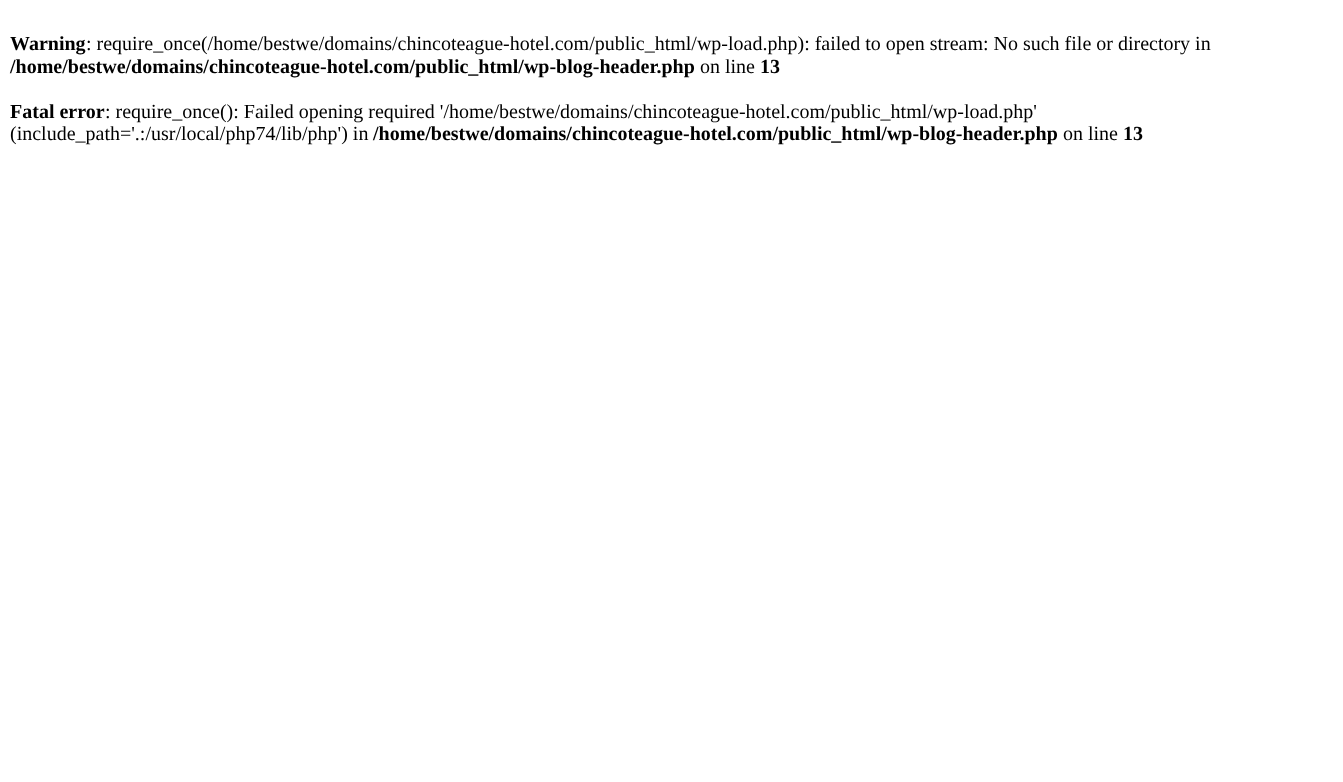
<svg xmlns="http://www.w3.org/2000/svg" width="1343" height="782">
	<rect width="100%" height="100%" fill="#FFFFFF" />
	<text x="10" y="50" font-family="Liberation Serif" font-size="20" font-weight="700" fill="#000000">Warning</text>
	<text x="86" y="50" font-family="Liberation Serif" font-size="20" fill="#000000">: require_once(/home/bestwe/domains/chincoteague-hotel.com/public_html/wp-load.php): failed to open stream: No such file or directory in</text>
	<text x="10" y="73" font-family="Liberation Serif" font-size="20" font-weight="700" fill="#000000">/home/bestwe/domains/chincoteague-hotel.com/public_html/wp-blog-header.php</text>
	<text x="700" y="73" font-family="Liberation Serif" font-size="20" fill="#000000">on line</text>
	<g font-family="Liberation Serif" font-size="20" font-weight="700" fill="#000000">
		<text x="760" y="73">13</text>
		<text x="10" y="118">Fatal error</text>
	</g>
	<g font-family="Liberation Serif" font-size="20" fill="#000000">
		<text x="105" y="118">: require_once(): Failed opening required '/home/bestwe/domains/chincoteague-hotel.com/public_html/wp-load.php'</text>
		<text x="10" y="140">(include_path='.:/usr/local/php74/lib/php') in</text>
	</g>
	<text x="373" y="140" font-family="Liberation Serif" font-size="20" font-weight="700" fill="#000000">/home/bestwe/domains/chincoteague-hotel.com/public_html/wp-blog-header.php</text>
	<text x="1063" y="140" font-family="Liberation Serif" font-size="20" fill="#000000">on line</text>
	<text x="1123" y="140" font-family="Liberation Serif" font-size="20" font-weight="700" fill="#000000">13</text>
</svg>
